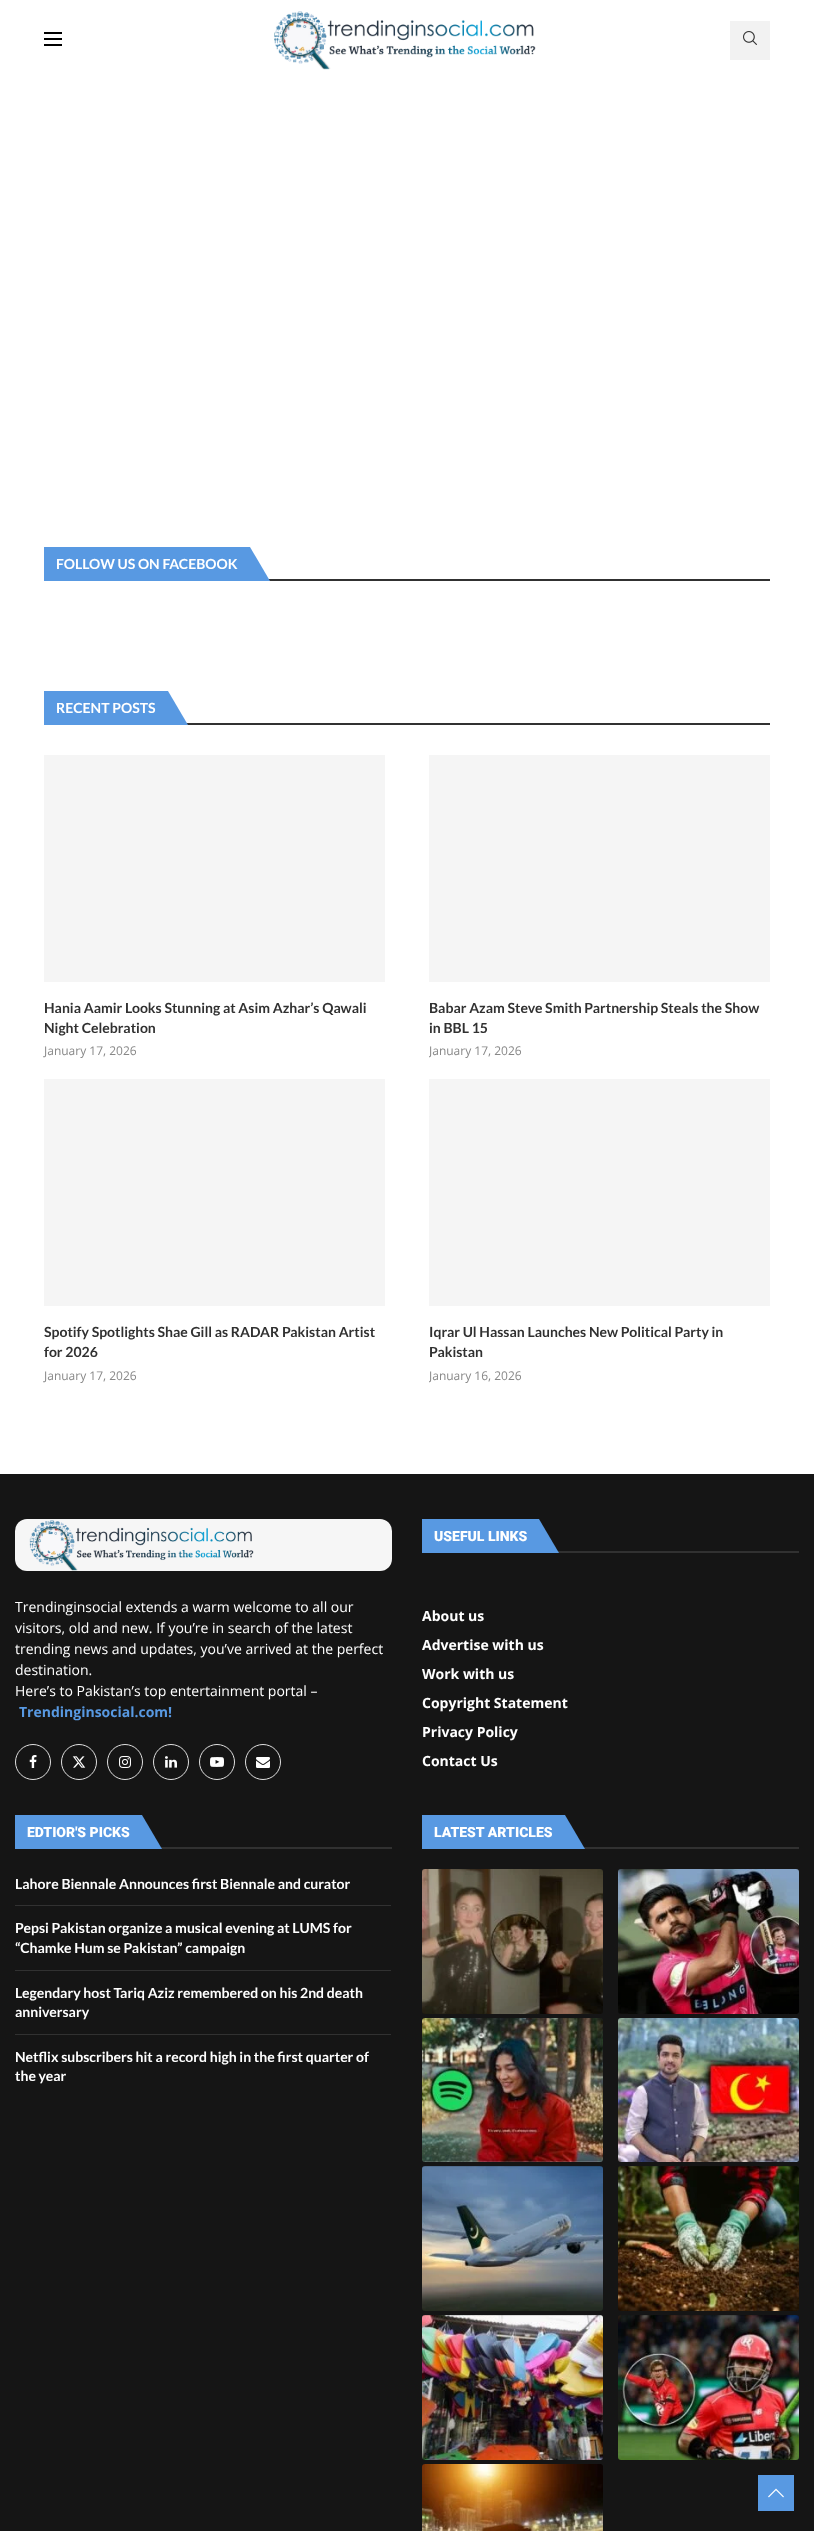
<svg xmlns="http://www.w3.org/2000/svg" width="814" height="2531">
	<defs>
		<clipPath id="clip1"><rect x="429" y="998" width="341" height="61" /></clipPath>
		<clipPath id="clip2"><rect x="429" y="1322" width="341" height="61" /></clipPath>
	</defs>
	<rect width="100%" height="100%" fill="#FFFFFF" />
	<rect x="44" y="32" width="18" height="2" fill="#000000" />
	<rect x="44" y="38" width="18" height="2" fill="#000000" />
	<rect x="44" y="44" width="18" height="2" fill="#000000" />
	<image x="274" y="11" width="262" height="59" href="assets/img1.png" />
	<rect x="730" y="21" width="40" height="39" fill="#F2F2F2" />
	<image x="743" y="31" width="14" height="14" href="assets/img2.png" />
	<rect x="268" y="579" width="502" height="2" fill="#313131" />
	<rect x="44" y="547" width="206" height="34" fill="#5899E2" />
	<text x="56" y="569" font-family="Lato" font-size="14" font-weight="700" fill="#FFFFFF">FOLLOW US ON FACEBOOK</text>
	<path d="M270 581H250V547Z" fill="#5899E2" />
	<rect x="186" y="723" width="584" height="2" fill="#313131" />
	<rect x="44" y="691" width="124" height="34" fill="#5899E2" />
	<text x="56" y="713" font-family="Lato" font-size="14" font-weight="700" fill="#FFFFFF">RECENT POSTS</text>
	<path d="M188 725H168V691Z" fill="#5899E2" />
	<rect x="44" y="755" width="341" height="227" fill="#F5F5F5" />
	<g font-family="Lato" font-size="14" font-weight="700" fill="#313131">
		<text x="44" y="1013">Hania Aamir Looks Stunning at Asim Azhar’s Qawali</text>
		<text x="44" y="1033">Night Celebration</text>
	</g>
	<text x="44" y="1055" font-family="Open Sans" font-size="12" fill="#888888">January 17, 2026</text>
	<rect x="429" y="755" width="341" height="227" fill="#F5F5F5" />
	<g font-family="Lato" font-size="14" font-weight="700" fill="#313131">
		<text x="429" y="1013">Babar Azam Steve Smith Partnership Steals the Show</text>
		<text x="429" y="1033">in BBL 15</text>
	</g>
	<g clip-path="url(#clip1)">
		<text x="429" y="1055" font-family="Open Sans" font-size="12" fill="#888888">January 17, 2026</text>
	</g>
	<rect x="44" y="1079" width="341" height="227" fill="#F5F5F5" />
	<g font-family="Lato" font-size="14" font-weight="700" fill="#313131">
		<text x="44" y="1337">Spotify Spotlights Shae Gill as RADAR Pakistan Artist</text>
		<text x="44" y="1357">for 2026</text>
	</g>
	<text x="44" y="1380" font-family="Open Sans" font-size="12" fill="#888888">January 17, 2026</text>
	<rect x="429" y="1079" width="341" height="227" fill="#F5F5F5" />
	<g font-family="Lato" font-size="14" font-weight="700" fill="#313131">
		<text x="429" y="1337">Iqrar Ul Hassan Launches New Political Party in</text>
		<text x="429" y="1357">Pakistan</text>
	</g>
	<g clip-path="url(#clip2)">
		<text x="429" y="1380" font-family="Open Sans" font-size="12" fill="#888888">January 16, 2026</text>
	</g>
	<rect x="0" y="1474" width="814" height="1057" fill="#151515" />
	<rect x="15" y="1519" width="377" height="52" rx="12" fill="#F6F6F6" />
	<image x="29" y="1520" width="225" height="51" href="assets/img3.png" />
	<g font-family="Open Sans" font-size="14" fill="#FFFFFF">
		<text x="15" y="1612">Trendinginsocial extends a warm welcome to all our</text>
		<text x="15" y="1633">visitors, old and new. If you’re in search of the latest</text>
		<text x="15" y="1654">trending news and updates, you’ve arrived at the perfect</text>
		<text x="15" y="1675">destination.</text>
		<text x="15" y="1696">Here’s to Pakistan’s top entertainment portal –</text>
	</g>
	<text x="19" y="1717" font-family="Open Sans" font-size="14" font-weight="700" fill="#5899E2">Trendinginsocial.com!</text>
	<circle cx="33" cy="1762" r="17.5" fill="none" stroke="#E0E0E0" />
	<image x="29" y="1755" width="8" height="13" href="assets/img4.png" />
	<circle cx="79" cy="1762" r="17.5" fill="none" stroke="#E0E0E0" />
	<image x="72" y="1756" width="14" height="12" href="assets/img5.png" />
	<circle cx="125" cy="1762" r="17.5" fill="none" stroke="#E0E0E0" />
	<image x="119" y="1756" width="12" height="12" href="assets/img6.png" />
	<circle cx="171" cy="1762" r="17.5" fill="none" stroke="#E0E0E0" />
	<image x="165" y="1756" width="12" height="12" href="assets/img7.png" />
	<circle cx="217" cy="1762" r="17.5" fill="none" stroke="#E0E0E0" />
	<image x="210" y="1757" width="14" height="10" href="assets/img8.png" />
	<circle cx="263" cy="1762" r="17.5" fill="none" stroke="#E0E0E0" />
	<image x="256" y="1757" width="14" height="11" href="assets/img9.png" />
	<rect x="557" y="1551" width="242" height="2" fill="#313131" />
	<rect x="422" y="1519" width="117" height="34" fill="#5899E2" />
	<text x="434" y="1541" font-family="Roboto" font-size="14" font-weight="900" fill="#FFFFFF">USEFUL LINKS</text>
	<path d="M559 1553H539V1519Z" fill="#5899E2" />
	<g font-family="Open Sans" font-size="14" font-weight="700" fill="#FFFFFF">
		<text x="422" y="1621">About us</text>
		<text x="422" y="1650">Advertise with us</text>
		<text x="422" y="1679">Work with us</text>
		<text x="422" y="1708">Copyright Statement</text>
		<text x="422" y="1737">Privacy Policy</text>
		<text x="422" y="1766">Contact Us</text>
	</g>
	<rect x="160" y="1847" width="232" height="2" fill="#313131" />
	<rect x="15" y="1815" width="127" height="34" fill="#5899E2" />
	<text x="27" y="1837" font-family="Roboto" font-size="14" font-weight="900" fill="#FFFFFF">EDTIOR'S PICKS</text>
	<path d="M162 1849H142V1815Z" fill="#5899E2" />
	<rect x="15" y="1905" width="376" height="1" fill="#313131" />
	<text x="15" y="1889" font-family="Lato" font-size="14" font-weight="700" fill="#FFFFFF">Lahore Biennale Announces first Biennale and curator</text>
	<rect x="15" y="1970" width="376" height="1" fill="#313131" />
	<g font-family="Lato" font-size="14" font-weight="700" fill="#FFFFFF">
		<text x="15" y="1933">Pepsi Pakistan organize a musical evening at LUMS for</text>
		<text x="15" y="1953">“Chamke Hum se Pakistan” campaign</text>
	</g>
	<rect x="15" y="2034" width="376" height="1" fill="#313131" />
	<g font-family="Lato" font-size="14" font-weight="700" fill="#FFFFFF">
		<text x="15" y="1998">Legendary host Tariq Aziz remembered on his 2nd death</text>
		<text x="15" y="2017">anniversary</text>
		<text x="15" y="2062">Netflix subscribers hit a record high in the first quarter of</text>
		<text x="15" y="2081">the year</text>
	</g>
	<rect x="583" y="1847" width="216" height="2" fill="#313131" />
	<rect x="422" y="1815" width="143" height="34" fill="#5899E2" />
	<text x="434" y="1837" font-family="Roboto" font-size="14" font-weight="900" fill="#FFFFFF">LATEST ARTICLES</text>
	<path d="M585 1849H565V1815Z" fill="#5899E2" />
	<image x="422" y="1869" width="181" height="145" href="assets/img10.png" />
	<image x="618" y="1869" width="181" height="145" href="assets/img11.png" />
	<image x="422" y="2018" width="181" height="144" href="assets/img12.png" />
	<image x="618" y="2018" width="181" height="144" href="assets/img13.png" />
	<image x="422" y="2166" width="181" height="145" href="assets/img14.png" />
	<image x="618" y="2166" width="181" height="145" href="assets/img15.png" />
	<image x="422" y="2315" width="181" height="145" href="assets/img16.png" />
	<image x="618" y="2315" width="181" height="145" href="assets/img17.png" />
	<image x="422" y="2464" width="181" height="67" href="assets/img18.png" />
	<rect x="758" y="2475" width="36" height="36" fill="#5899E2" />
	<image x="768" y="2488" width="16" height="10" href="assets/img19.png" />
</svg>
